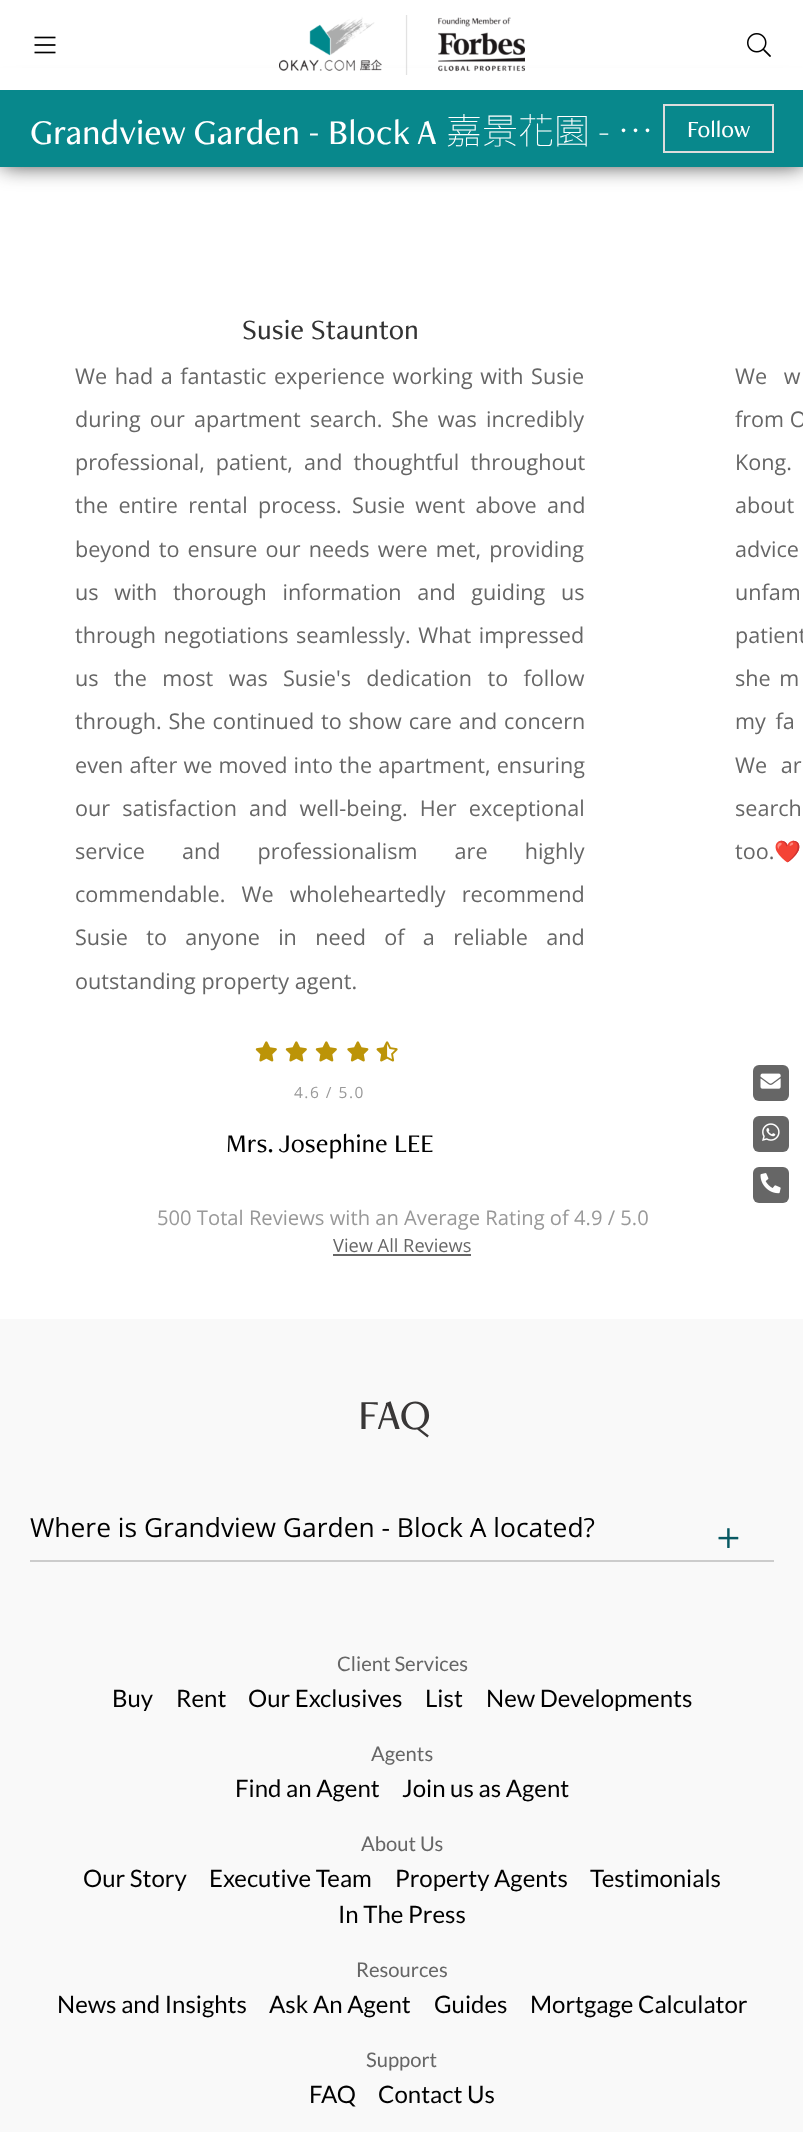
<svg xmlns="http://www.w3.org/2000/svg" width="803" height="2132">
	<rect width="100%" height="100%" fill="#FFFFFF" />
	<rect x="2" y="92" width="801" height="73" fill="#333333" filter="blur(11px)" />
	<rect x="0" y="68" width="803" height="22" fill="#FFFFFF" />
	<image x="34" y="36" width="22" height="18" href="assets/img1.png" />
	<image x="279" y="15" width="246" height="60" href="assets/img2.png" />
	<image x="747" y="33" width="24" height="24" href="assets/img3.png" />
	<rect x="0" y="90" width="803" height="77" fill="#08888C" />
	<text x="30" y="144" word-spacing="-0.5" font-family="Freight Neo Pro" font-size="36" font-weight="500" fill="#FFFFFF">Grandview Garden - Block A</text>
	<text x="446" y="144" font-family="Noto Sans TC" font-size="36" font-weight="100" fill="#FFFFFF">嘉景花園 - …</text>
	<rect x="664" y="105" width="109" height="47" fill="none" stroke="#DDDDDD" stroke-width="2" />
	<text x="687" y="137" font-family="Freight Neo Pro" font-size="24" font-weight="500" fill="#FFFFFF">Follow</text>
	<text x="242" y="339" font-family="Freight Neo Pro" font-size="28.75" font-weight="500" fill="#333333">Susie Staunton</text>
	<g font-family="Open Sans" font-size="21.6" fill="#666666">
		<text x="75" y="384" word-spacing="2">We had a fantastic experience working with Susie</text>
		<text x="75" y="427" word-spacing="3.5">during our apartment search. She was incredibly</text>
		<text x="75" y="470" word-spacing="5.5">professional, patient, and thoughtful throughout</text>
		<text x="75" y="513" word-spacing="4.75">the entire rental process. Susie went above and</text>
		<text x="75" y="557" word-spacing="2.5">beyond to ensure our needs were met, providing</text>
		<text x="75" y="600" word-spacing="10">us with thorough information and guiding us</text>
		<text x="75" y="643" word-spacing="2">through negotiations seamlessly. What impressed</text>
		<text x="75" y="686" word-spacing="9.75">us the most was Susie's dedication to follow</text>
		<text x="75" y="729" word-spacing="1.25">through. She continued to show care and concern</text>
		<text x="75" y="773" word-spacing="0.5">even after we moved into the apartment, ensuring</text>
		<text x="75" y="816" word-spacing="6.5">our satisfaction and well-being. Her exceptional</text>
		<text x="75" y="859" word-spacing="31.5">service and professionalism are highly</text>
		<text x="75" y="902" word-spacing="10.5">commendable. We wholeheartedly recommend</text>
		<text x="75" y="945" word-spacing="12.75">Susie to anyone in need of a reliable and</text>
		<text x="75" y="989">outstanding property agent.</text>
	</g>
	<image x="255" y="1041" width="22" height="21" href="assets/img4.png" />
	<image x="285" y="1041" width="22" height="21" href="assets/img4.png" />
	<image x="315" y="1041" width="22" height="21" href="assets/img4.png" />
	<image x="347" y="1041" width="22" height="21" href="assets/img5.png" />
	<image x="376" y="1041" width="22" height="21" href="assets/img6.png" />
	<text x="294" y="1098" font-family="Open Sans" font-size="15.5" letter-spacing="1.5" fill="#999999">4.6 / 5.0</text>
	<text x="226" y="1152" font-family="Freight Neo Pro" font-size="26.4" font-weight="500" fill="#000000">Mrs. Josephine LEE</text>
	<g font-family="Open Sans" font-size="21.6" fill="#666666">
		<text x="735" y="384" word-spacing="11">We w</text>
		<text x="735" y="427">from O</text>
		<text x="735" y="470" word-spacing="10.5">Kong.</text>
		<text x="735" y="513" word-spacing="10">about</text>
		<text x="735" y="557" word-spacing="1">advice</text>
		<text x="735" y="600" word-spacing="5">unfam</text>
		<text x="735" y="643" word-spacing="3">patient</text>
		<text x="735" y="686" word-spacing="3">she m</text>
		<text x="735" y="729" word-spacing="4">my fa</text>
		<text x="735" y="773" word-spacing="8">We ar</text>
		<text x="735" y="816" word-spacing="6">search</text>
		<text x="735" y="859">too.</text>
	</g>
	<text x="774" y="859" font-family="Noto Color Emoji" font-size="21.6" fill="#666666">❤️</text>
	<text x="157" y="1225" font-family="Open Sans" font-size="20.2" fill="#999999">500 Total Reviews with an Average Rating of 4.9 / 5.0</text>
	<text x="333" y="1252" font-family="Open Sans" font-size="18.25" fill="#666666">View All Reviews</text>
	<rect x="333" y="1254" width="138" height="2" fill="#666666" />
	<rect x="0" y="1319" width="803" height="813" fill="#F9F9F9" />
	<text x="358" y="1429" font-family="Freight Neo Pro" font-size="43" font-weight="500" fill="#393737">FAQ</text>
	<rect x="30" y="1560" width="744" height="2" fill="#CCCCCC" />
	<text x="30" y="1537" font-family="Open Sans" font-size="26.4" fill="#000000">Where is Grandview Garden - Block A located?</text>
	<image x="718" y="1528" width="21" height="20" href="assets/img7.png" />
	<rect x="753" y="1065" width="36" height="36" rx="6" fill="#666666" />
	<image x="760" y="1073" width="21" height="16" href="assets/img8.png" />
	<rect x="753" y="1116" width="36" height="36" rx="6" fill="#666666" />
	<image x="762" y="1123" width="18" height="18" href="assets/img9.png" />
	<rect x="753" y="1167" width="36" height="36" rx="6" fill="#666666" />
	<image x="760" y="1173" width="21" height="21" href="assets/img10.png" />
	<text x="337" y="1671" font-family="Lato" font-size="20.2" fill="#666666">Client Services</text>
	<g font-family="Lato" font-size="24" fill="#000000">
		<text x="112" y="1707">Buy</text>
		<text x="176" y="1707">Rent</text>
		<text x="248" y="1707">Our Exclusives</text>
		<text x="425" y="1707">List</text>
		<text x="486" y="1707">New Developments</text>
	</g>
	<text x="371" y="1761" font-family="Lato" font-size="20.2" fill="#666666">Agents</text>
	<g font-family="Lato" font-size="24" fill="#000000">
		<text x="235" y="1797">Find an Agent</text>
		<text x="402" y="1797">Join us as Agent</text>
	</g>
	<text x="361" y="1851" font-family="Lato" font-size="20.2" fill="#666666">About Us</text>
	<g font-family="Lato" font-size="24" fill="#000000">
		<text x="83" y="1887">Our Story</text>
		<text x="209" y="1887">Executive Team</text>
		<text x="395" y="1887">Property Agents</text>
		<text x="590" y="1887">Testimonials</text>
		<text x="338" y="1923">In The Press</text>
	</g>
	<text x="356" y="1977" font-family="Lato" font-size="20.2" fill="#666666">Resources</text>
	<g font-family="Lato" font-size="24" fill="#000000">
		<text x="57" y="2013">News and Insights</text>
		<text x="269" y="2013">Ask An Agent</text>
		<text x="434" y="2013">Guides</text>
		<text x="530" y="2013">Mortgage Calculator</text>
	</g>
	<text x="366" y="2067" font-family="Lato" font-size="20.2" fill="#666666">Support</text>
	<g font-family="Lato" font-size="24" fill="#000000">
		<text x="309" y="2103">FAQ</text>
		<text x="378" y="2103">Contact Us</text>
	</g>
</svg>
